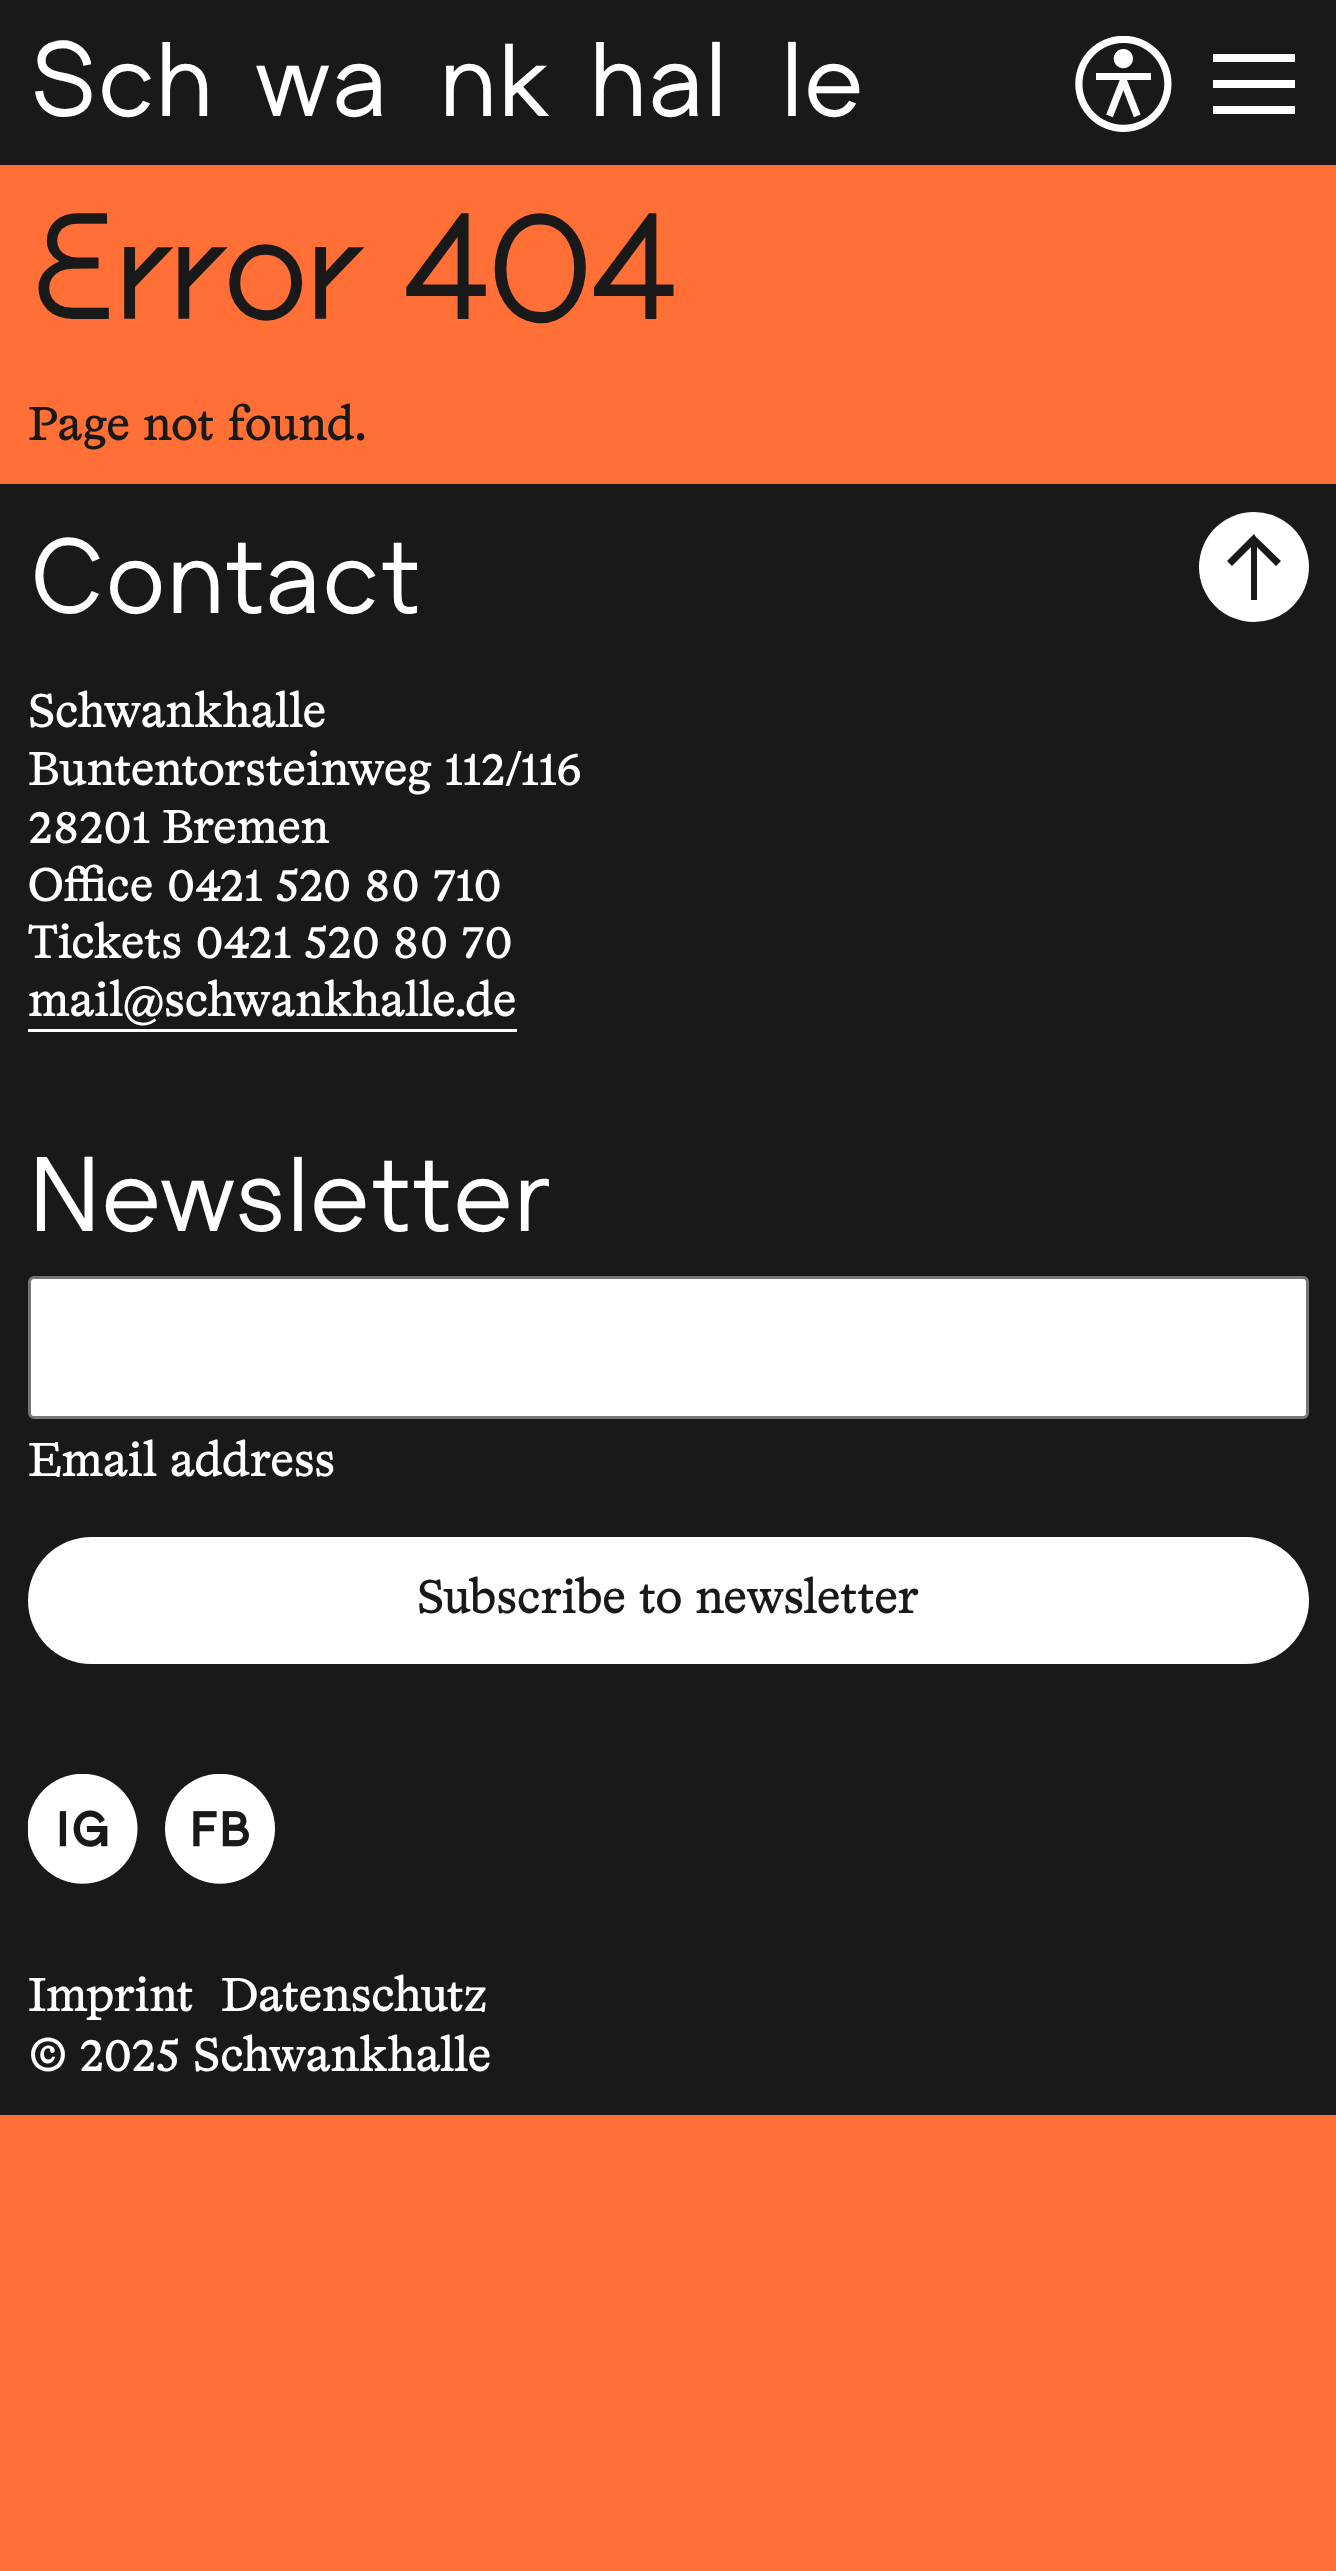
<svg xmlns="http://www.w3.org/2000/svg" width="1336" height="2571">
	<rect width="100%" height="100%" fill="#FF6F36" />
	<rect x="0" y="0" width="1336" height="165" fill="#191919" />
	<g font-family="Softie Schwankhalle" font-size="96.25" letter-spacing="-1.4" fill="#FFFFFF">
		<text x="28" y="116">Sch</text>
		<text x="253" y="116">wa</text>
		<text x="438" y="116">nk</text>
		<text x="588" y="116">hal</text>
		<text x="780" y="116">le</text>
	</g>
	<image x="1075" y="36" width="97" height="96" href="assets/img1.png" />
	<rect x="1213" y="54" width="82" height="8" fill="#FFFFFF" />
	<rect x="1213" y="80" width="82" height="8" fill="#FFFFFF" />
	<rect x="1213" y="106" width="82" height="8" fill="#FFFFFF" />
	<text x="28" y="319" font-family="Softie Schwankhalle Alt" font-size="137.5" letter-spacing="-6.9" fill="#191919">Error 404</text>
	<text x="28" y="440" font-family="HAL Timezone" font-size="48.1" fill="#191919">Page not found.</text>
	<rect x="0" y="484" width="1336" height="1631" fill="#191919" />
	<text x="28" y="613" font-family="Softie Schwankhalle" font-size="96.25" letter-spacing="-1.4" fill="#FFFFFF">Contact</text>
	<g font-family="HAL Timezone" font-size="48.1" fill="#FFFFFF">
		<text x="28" y="727">Schwankhalle</text>
		<text x="28" y="785">Buntentorsteinweg 112/116</text>
		<text x="28" y="843">28201 Bremen</text>
		<text x="28" y="901">Office 0421 520 80 710</text>
		<text x="28" y="958">Tickets 0421 520 80 70</text>
		<text x="28" y="1016">mail@schwankhalle.de</text>
	</g>
	<rect x="28" y="1029" width="489" height="3" fill="#FFFFFF" />
	<circle cx="1254" cy="567" r="55" fill="#FFFFFF" />
	<path d="M1256 537L1254 534L1227 561L1232 566L1251 547V600H1257V547L1276 566L1281 561Z" fill="#191919" fill-rule="evenodd" />
	<text x="28" y="1231" font-family="Softie Schwankhalle" font-size="96.25" letter-spacing="-1.4" fill="#FFFFFF">Newsletter</text>
	<rect x="29.5" y="1277.5" width="1278" height="140" rx="4.5" fill="#FFFFFF" stroke="#767676" stroke-width="3" />
	<text x="28" y="1476" font-family="HAL Timezone" font-size="48.1" fill="#FFFFFF">Email address</text>
	<rect x="28" y="1537" width="1281" height="127" rx="63.5" fill="#FFFFFF" />
	<text x="417" y="1613" font-family="HAL Timezone" font-size="48.1" fill="#191919">Subscribe to newsletter</text>
	<image x="28" y="1774" width="110" height="110" href="assets/img2.png" />
	<image x="165" y="1774" width="110" height="110" href="assets/img3.png" />
	<g font-family="HAL Timezone" font-size="48.1" fill="#FFFFFF">
		<text x="28" y="2011">Imprint</text>
		<text x="221" y="2011">Datenschutz</text>
		<text x="28" y="2071">© 2025 Schwankhalle</text>
	</g>
</svg>
